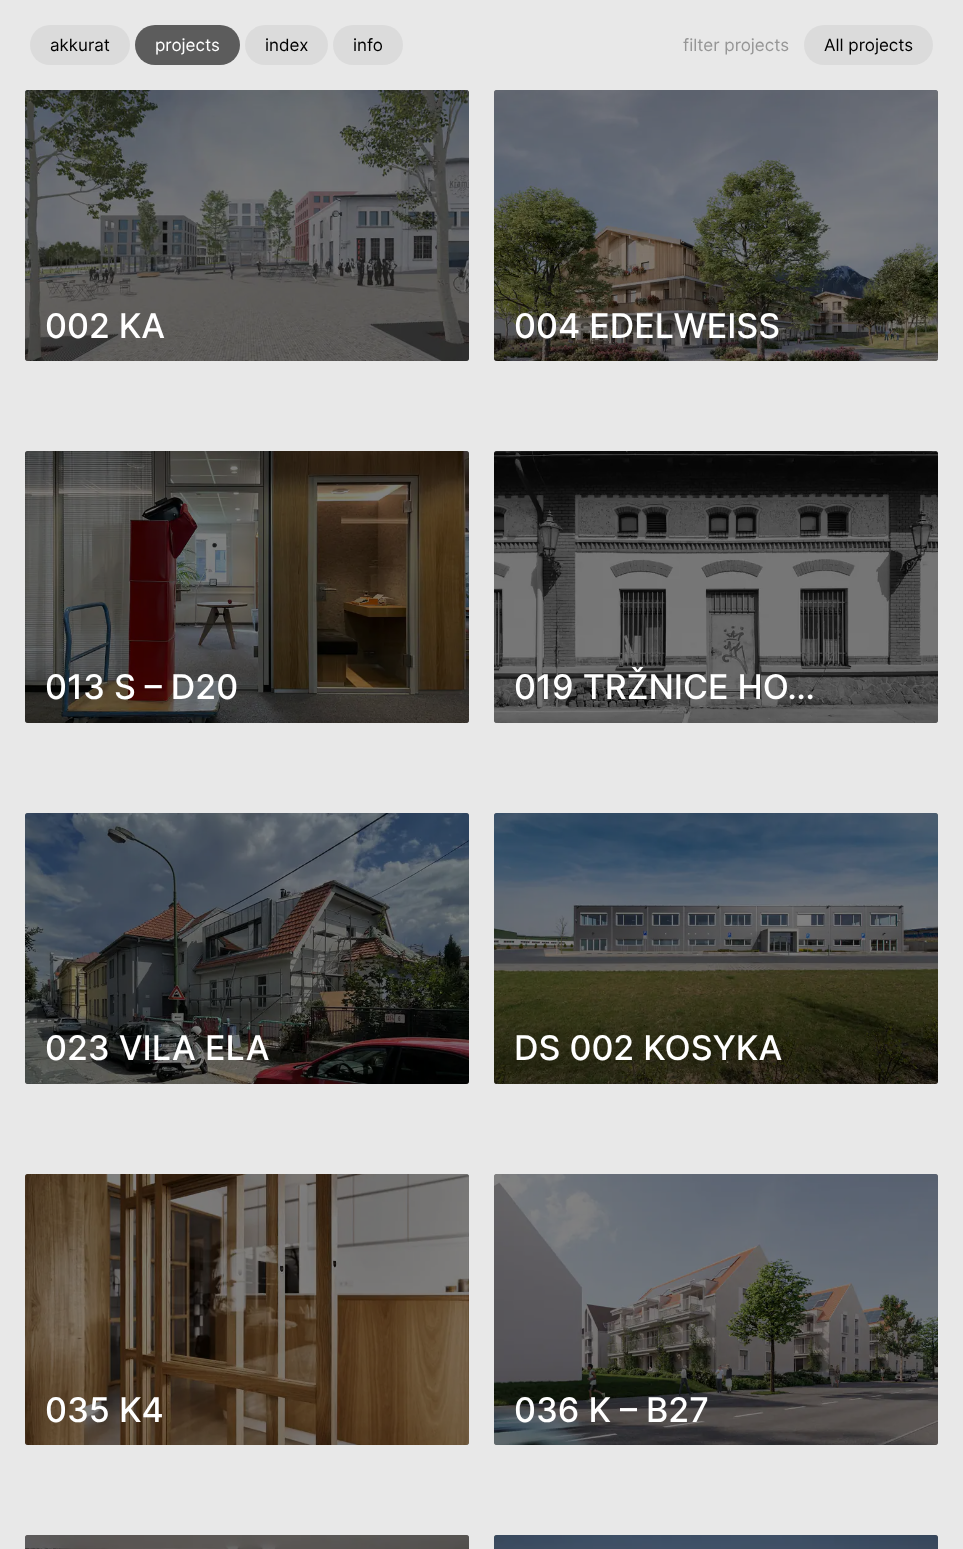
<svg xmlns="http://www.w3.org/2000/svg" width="963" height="1549">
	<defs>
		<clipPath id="clip1"><rect x="514" y="667" width="404" height="41" /></clipPath>
	</defs>
	<rect width="100%" height="100%" fill="#E8E8E8" />
	<rect x="30" y="25" width="100" height="40" rx="20" fill="#DBDBDB" />
	<text x="50" y="51" font-family="Inter" font-size="17" fill="#000000">akkurat</text>
	<rect x="135" y="25" width="105" height="40" rx="20" fill="#5C5C5C" />
	<text x="155" y="51" font-family="Inter" font-size="17" fill="#FFFFFF">projects</text>
	<rect x="245" y="25" width="83" height="40" rx="20" fill="#DBDBDB" />
	<text x="265" y="51" font-family="Inter" font-size="17" fill="#000000">index</text>
	<rect x="333" y="25" width="70" height="40" rx="20" fill="#DBDBDB" />
	<text x="353" y="51" font-family="Inter" font-size="17" fill="#000000">info</text>
	<text x="683" y="51" font-family="Inter" font-size="17" fill="#969696">filter projects</text>
	<rect x="804" y="25" width="129" height="40" rx="20" fill="#DBDBDB" />
	<text x="824" y="51" font-family="Inter" font-size="17" fill="#000000">All projects</text>
	<rect x="25" y="90" width="444" height="271" rx="3" fill="#000000" />
	<image x="25" y="90" width="444" height="271" href="assets/img1.png" />
	<text x="45" y="338" font-family="Inter" font-size="34" font-weight="500" fill="#FFFFFF">002 KA</text>
	<rect x="494" y="90" width="444" height="271" rx="3" fill="#000000" />
	<image x="494" y="90" width="444" height="271" href="assets/img2.png" />
	<text x="514" y="338" font-family="Inter" font-size="34" font-weight="500" fill="#FFFFFF">004 EDELWEISS</text>
	<rect x="25" y="451" width="444" height="272" rx="3" fill="#000000" />
	<image x="25" y="451" width="444" height="272" href="assets/img3.png" />
	<text x="45" y="699" font-family="Inter" font-size="34" font-weight="500" fill="#FFFFFF">013 S – D20</text>
	<rect x="494" y="451" width="444" height="272" rx="3" fill="#000000" />
	<image x="494" y="451" width="444" height="272" href="assets/img4.png" />
	<g clip-path="url(#clip1)">
		<text x="514" y="699" font-family="Inter" font-size="34" font-weight="500" fill="#FFFFFF">019 TRŽNICE HO…</text>
	</g>
	<rect x="25" y="813" width="444" height="271" rx="3" fill="#000000" />
	<image x="25" y="813" width="444" height="271" href="assets/img5.png" />
	<text x="45" y="1060" font-family="Inter" font-size="34" font-weight="500" fill="#FFFFFF">023 VILA ELA</text>
	<rect x="494" y="813" width="444" height="271" rx="3" fill="#000000" />
	<image x="494" y="813" width="444" height="271" href="assets/img6.png" />
	<text x="514" y="1060" font-family="Inter" font-size="34" font-weight="500" fill="#FFFFFF">DS 002 KOSYKA</text>
	<rect x="25" y="1174" width="444" height="271" rx="3" fill="#000000" />
	<image x="25" y="1174" width="444" height="271" href="assets/img7.png" />
	<text x="45" y="1422" font-family="Inter" font-size="34" font-weight="500" fill="#FFFFFF">035 K4</text>
	<rect x="494" y="1174" width="444" height="271" rx="3" fill="#000000" />
	<image x="494" y="1174" width="444" height="271" href="assets/img8.png" />
	<text x="514" y="1422" font-family="Inter" font-size="34" font-weight="500" fill="#FFFFFF">036 K – B27</text>
	<rect x="25" y="1535" width="444" height="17" rx="3" fill="#000000" />
	<image x="25" y="1535" width="444" height="14" href="assets/img9.png" />
	<rect x="494" y="1535" width="444" height="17" rx="3" fill="#000000" />
	<image x="494" y="1535" width="444" height="14" href="assets/img10.png" />
</svg>
